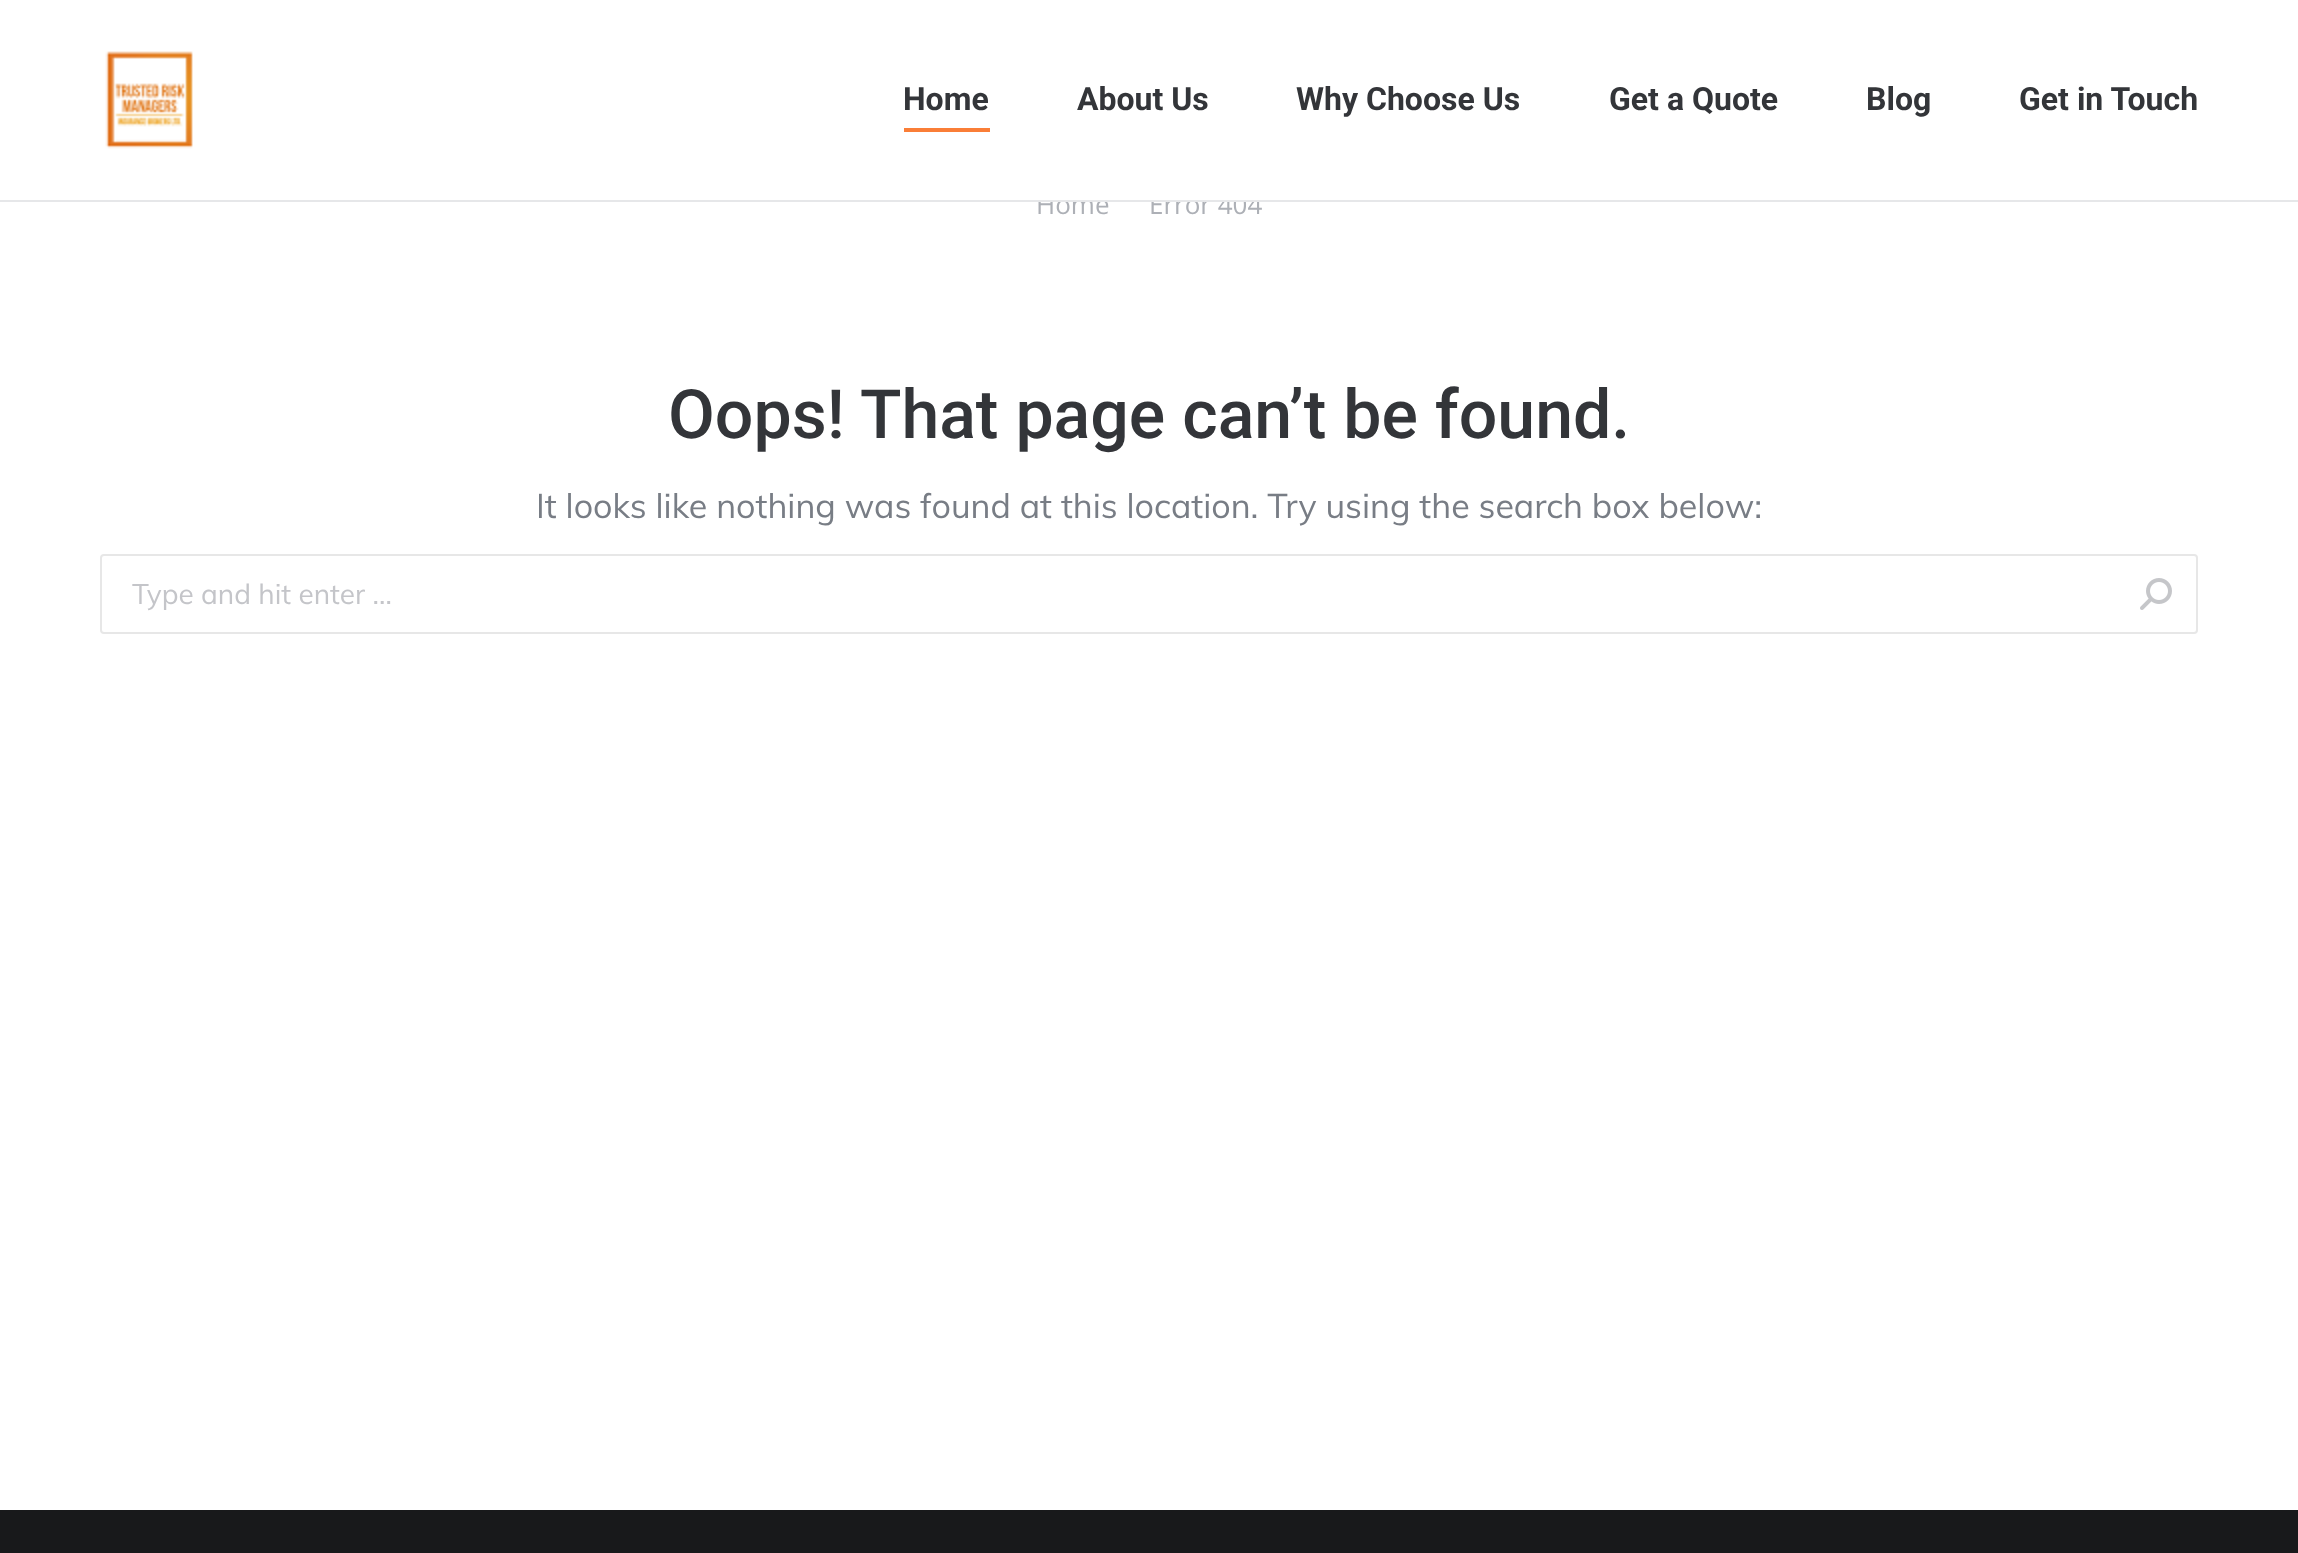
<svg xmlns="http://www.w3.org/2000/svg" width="2298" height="1553">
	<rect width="100%" height="100%" fill="#FFFFFF" />
	<g font-family="Open Sans" font-size="26" fill="#ADB0B6">
		<text x="1036" y="214">Home</text>
		<text x="1149" y="214">Error 404</text>
	</g>
	<rect x="1038" y="195" width="222" height="5" fill="#FFFFFF" />
	<rect x="0" y="200" width="2298" height="2" fill="#E6E7E9" />
	<image x="105" y="51" width="88" height="98" href="assets/img1.png" />
	<text x="903" y="110" font-family="Roboto" font-size="32" font-weight="700" fill="#333539">Home</text>
	<rect x="904" y="128" width="86" height="4" fill="#FA7E37" />
	<g font-family="Roboto" font-size="32" font-weight="700" fill="#333539">
		<text x="1077" y="110">About Us</text>
		<text x="1296" y="110">Why Choose Us</text>
		<text x="1609" y="110">Get a Quote</text>
		<text x="1866" y="110">Blog</text>
		<text x="2019" y="110">Get in Touch</text>
	</g>
	<text x="668" y="438" font-family="Roboto" font-size="68" font-weight="500" fill="#333539">Oops! That page can’t be found.</text>
	<text x="536" y="518" font-family="Muli" font-size="34" fill="#787D85">It looks like nothing was found at this location. Try using the search box below:</text>
	<rect x="101" y="555" width="2096" height="78" rx="3" fill="none" stroke="#E7E7E7" stroke-width="2" />
	<text x="132" y="604" font-family="Muli" font-size="28" fill="#C4C5C9">Type and hit enter …</text>
	<image x="2140" y="578" width="32" height="32" href="assets/img2.png" />
	<rect x="0" y="1510" width="2298" height="43" fill="#18191B" />
</svg>
